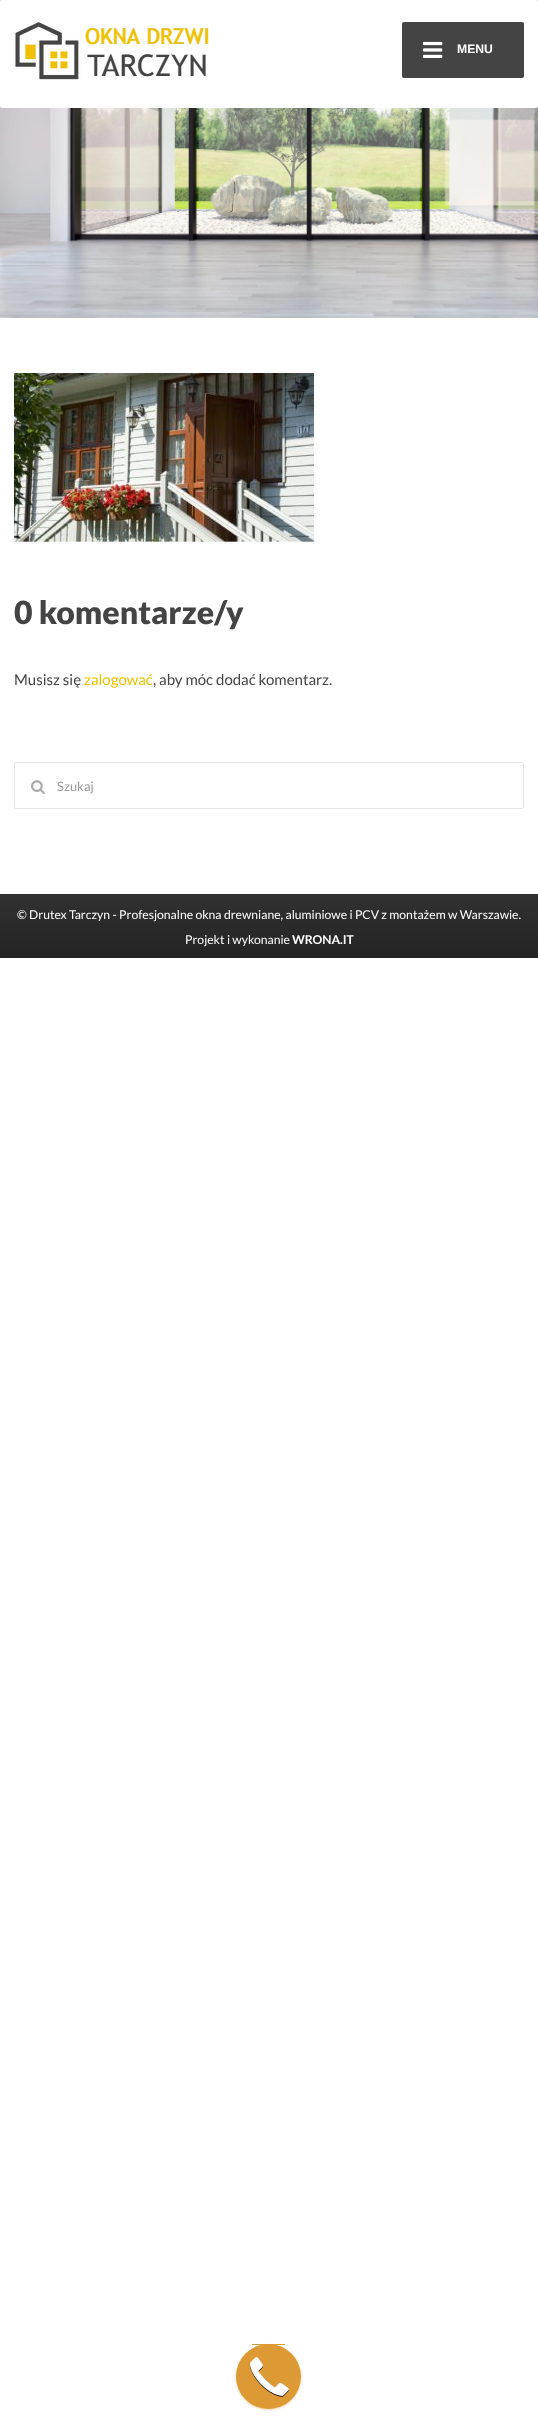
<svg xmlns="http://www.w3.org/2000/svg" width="538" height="2424">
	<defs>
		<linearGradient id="g1" gradientUnits="userSpaceOnUse" x1="269" y1="894" x2="269" y2="958"><stop offset="0" stop-color="#313131" /><stop offset="1" stop-color="#242424" /></linearGradient>
	</defs>
	<rect width="100%" height="100%" fill="#FFFFFF" />
	<image x="0" y="0" width="538" height="318" href="assets/img1.png" />
	<rect x="0" y="0" width="538" height="108" rx="2" fill="#FFFFFF" />
	<image x="15" y="22" width="194" height="58" href="assets/img2.png" />
	<rect x="402" y="22" width="122" height="56" rx="2" fill="#444444" />
	<image x="423" y="41" width="20" height="17" href="assets/img3.png" />
	<text x="457" y="53" font-family="Liberation Sans" font-size="12.2" font-weight="700" fill="#FFFFFF">MENU</text>
	<image x="14" y="373" width="300" height="169" href="assets/img4.png" />
	<text x="14" y="624" font-family="Lato" font-size="32" font-weight="900" fill="#444444">0 komentarze/y</text>
	<text x="14" y="685" font-family="Lato" font-size="15" fill="#444444">Musisz się</text>
	<text x="84" y="685" font-family="Lato" font-size="15" fill="#F0C000">zalogować</text>
	<text x="153" y="685" font-family="Lato" font-size="15" fill="#444444">, aby móc dodać komentarz.</text>
	<rect x="14.5" y="762.5" width="509" height="46" rx="1.5" fill="none" stroke="#E6E6E6" />
	<image x="31" y="780" width="14" height="15" href="assets/img5.png" />
	<text x="57" y="791" font-family="Lato" font-size="13" fill="#999999">Szukaj</text>
	<rect x="0" y="894" width="538" height="64" fill="url(#g1)" />
	<g font-family="Lato" font-size="12.2" fill="#FFFFFF">
		<text x="17" y="919">© Drutex Tarczyn - Profesjonalne okna drewniane, aluminiowe i PCV z montażem w Warszawie.</text>
		<text x="185" y="944">Projekt i wykonanie</text>
	</g>
	<text x="292" y="944" font-family="Lato" font-size="12.2" font-weight="700" fill="#FFFFFF">WRONA.IT</text>
	<rect x="236" y="2345" width="65" height="65" rx="32.5" fill="#DD9933" fill-opacity="0.4" filter="blur(1px)" />
	<circle cx="268.5" cy="2376.5" r="32.5" fill="#DD9933" />
	<image x="249" y="2357" width="40" height="40" href="assets/img6.png" />
	<rect x="252" y="2344" width="33" height="1" fill="#DD9933" />
</svg>
